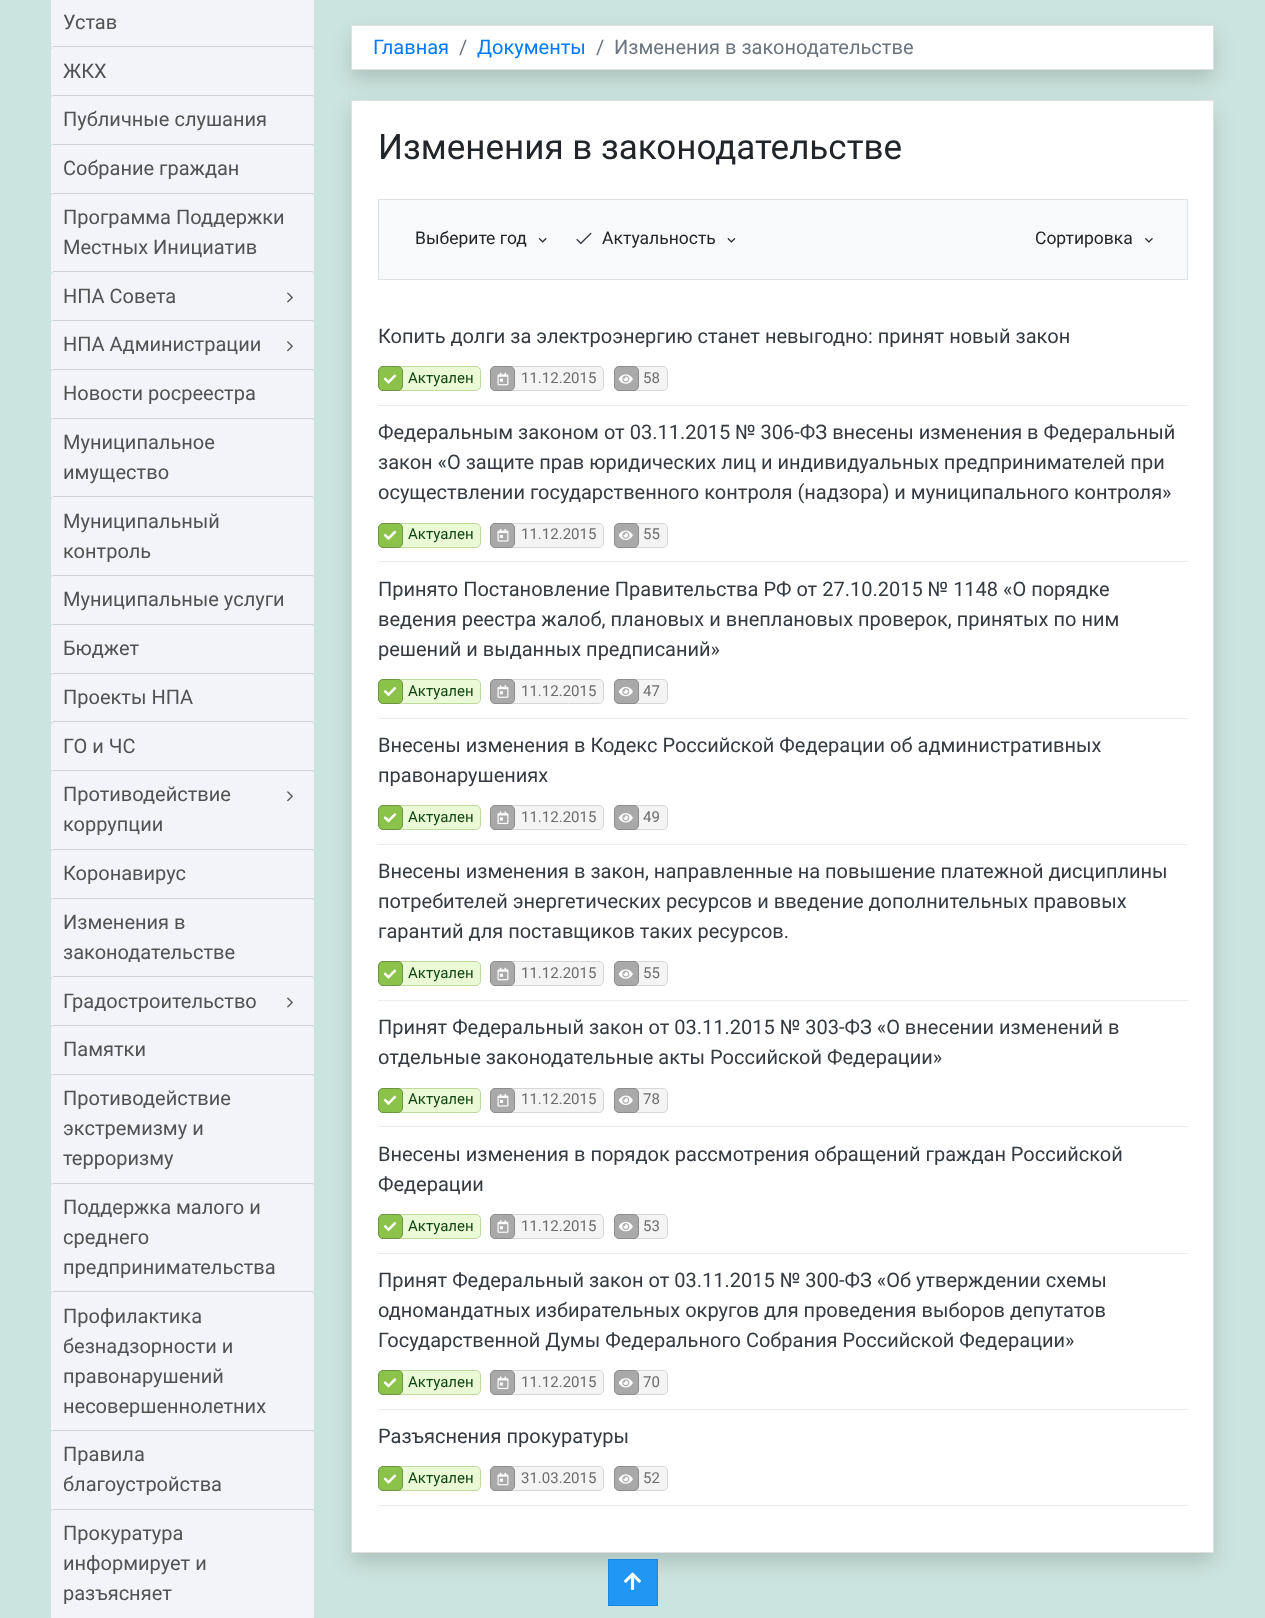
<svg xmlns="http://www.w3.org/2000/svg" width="1265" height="1618">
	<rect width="100%" height="100%" fill="#CCE4DF" />
	<rect x="51" y="-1" width="263" height="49" rx="2.5" fill="#F2F4F9" />
	<rect x="53" y="46" width="260" height="1" fill="#CFD1D7" />
	<text x="63" y="29" font-family="Roboto" font-size="20" fill="#525252">Устав</text>
	<rect x="51" y="48" width="263" height="48" rx="2.5" fill="#F2F4F9" />
	<rect x="53" y="95" width="260" height="1" fill="#CFD1D7" />
	<text x="63" y="78" font-family="Roboto" font-size="20" fill="#525252">ЖКХ</text>
	<rect x="51" y="96" width="263" height="49" rx="2.5" fill="#F2F4F9" />
	<rect x="53" y="144" width="260" height="1" fill="#CFD1D7" />
	<text x="63" y="126" font-family="Roboto" font-size="20" fill="#525252">Публичные слушания</text>
	<rect x="51" y="145" width="263" height="49" rx="2.5" fill="#F2F4F9" />
	<rect x="53" y="193" width="260" height="1" fill="#CFD1D7" />
	<text x="63" y="175" font-family="Roboto" font-size="20" fill="#525252">Собрание граждан</text>
	<rect x="51" y="194" width="263" height="79" rx="2.5" fill="#F2F4F9" />
	<rect x="53" y="271" width="260" height="1" fill="#CFD1D7" />
	<g font-family="Roboto" font-size="20" fill="#525252">
		<text x="63" y="224">Программа Поддержки</text>
		<text x="63" y="254">Местных Инициатив</text>
	</g>
	<rect x="51" y="273" width="263" height="48" rx="2.5" fill="#F2F4F9" />
	<rect x="53" y="320" width="260" height="1" fill="#CFD1D7" />
	<text x="63" y="303" font-family="Roboto" font-size="20" fill="#525252">НПА Совета</text>
	<image x="287" y="292" width="6" height="11" href="assets/img1.png" />
	<rect x="51" y="321" width="263" height="49" rx="2.5" fill="#F2F4F9" />
	<rect x="53" y="369" width="260" height="1" fill="#CFD1D7" />
	<text x="63" y="351" font-family="Roboto" font-size="20" fill="#525252">НПА Администрации</text>
	<image x="287" y="341" width="6" height="11" href="assets/img2.png" />
	<rect x="51" y="370" width="263" height="49" rx="2.5" fill="#F2F4F9" />
	<rect x="53" y="418" width="260" height="1" fill="#CFD1D7" />
	<text x="63" y="400" font-family="Roboto" font-size="20" fill="#525252">Новости росреестра</text>
	<rect x="51" y="419" width="263" height="79" rx="2.5" fill="#F2F4F9" />
	<rect x="53" y="496" width="260" height="1" fill="#CFD1D7" />
	<g font-family="Roboto" font-size="20" fill="#525252">
		<text x="63" y="449">Муниципальное</text>
		<text x="63" y="479">имущество</text>
	</g>
	<rect x="51" y="498" width="263" height="78" rx="2.5" fill="#F2F4F9" />
	<rect x="53" y="575" width="260" height="1" fill="#CFD1D7" />
	<g font-family="Roboto" font-size="20" fill="#525252">
		<text x="63" y="528">Муниципальный</text>
		<text x="63" y="558">контроль</text>
	</g>
	<rect x="51" y="576" width="263" height="49" rx="2.5" fill="#F2F4F9" />
	<rect x="53" y="624" width="260" height="1" fill="#CFD1D7" />
	<text x="63" y="606" font-family="Roboto" font-size="20" fill="#525252">Муниципальные услуги</text>
	<rect x="51" y="625" width="263" height="49" rx="2.5" fill="#F2F4F9" />
	<rect x="53" y="673" width="260" height="1" fill="#CFD1D7" />
	<text x="63" y="655" font-family="Roboto" font-size="20" fill="#525252">Бюджет</text>
	<rect x="51" y="674" width="263" height="49" rx="2.5" fill="#F2F4F9" />
	<rect x="53" y="721" width="260" height="1" fill="#CFD1D7" />
	<text x="63" y="704" font-family="Roboto" font-size="20" fill="#525252">Проекты НПА</text>
	<rect x="51" y="723" width="263" height="48" rx="2.5" fill="#F2F4F9" />
	<rect x="53" y="770" width="260" height="1" fill="#CFD1D7" />
	<text x="63" y="753" font-family="Roboto" font-size="20" fill="#525252">ГО и ЧС</text>
	<rect x="51" y="771" width="263" height="79" rx="2.5" fill="#F2F4F9" />
	<rect x="53" y="849" width="260" height="1" fill="#CFD1D7" />
	<text x="63" y="801" font-family="Roboto" font-size="20" fill="#525252">Противодействие</text>
	<image x="287" y="791" width="6" height="11" href="assets/img2.png" />
	<text x="63" y="831" font-family="Roboto" font-size="20" fill="#525252">коррупции</text>
	<rect x="51" y="850" width="263" height="49" rx="2.5" fill="#F2F4F9" />
	<rect x="53" y="898" width="260" height="1" fill="#CFD1D7" />
	<text x="63" y="880" font-family="Roboto" font-size="20" fill="#525252">Коронавирус</text>
	<rect x="51" y="899" width="263" height="79" rx="2.5" fill="#F2F4F9" />
	<rect x="53" y="976" width="260" height="1" fill="#CFD1D7" />
	<g font-family="Roboto" font-size="20" fill="#525252">
		<text x="63" y="929">Изменения в</text>
		<text x="63" y="959">законодательстве</text>
	</g>
	<rect x="51" y="978" width="263" height="48" rx="2.5" fill="#F2F4F9" />
	<rect x="53" y="1025" width="260" height="1" fill="#CFD1D7" />
	<text x="63" y="1008" font-family="Roboto" font-size="20" fill="#525252">Градостроительство</text>
	<image x="287" y="997" width="6" height="11" href="assets/img1.png" />
	<rect x="51" y="1026" width="263" height="49" rx="2.5" fill="#F2F4F9" />
	<rect x="53" y="1074" width="260" height="1" fill="#CFD1D7" />
	<text x="63" y="1056" font-family="Roboto" font-size="20" fill="#525252">Памятки</text>
	<rect x="51" y="1075" width="263" height="109" rx="2.5" fill="#F2F4F9" />
	<rect x="53" y="1183" width="260" height="1" fill="#CFD1D7" />
	<g font-family="Roboto" font-size="20" fill="#525252">
		<text x="63" y="1105">Противодействие</text>
		<text x="63" y="1135">экстремизму и</text>
		<text x="63" y="1165">терроризму</text>
	</g>
	<rect x="51" y="1184" width="263" height="109" rx="2.5" fill="#F2F4F9" />
	<rect x="53" y="1291" width="260" height="1" fill="#CFD1D7" />
	<g font-family="Roboto" font-size="20" fill="#525252">
		<text x="63" y="1214">Поддержка малого и</text>
		<text x="63" y="1244">среднего</text>
		<text x="63" y="1274">предпринимательства</text>
	</g>
	<rect x="51" y="1293" width="263" height="138" rx="2.5" fill="#F2F4F9" />
	<rect x="53" y="1430" width="260" height="1" fill="#CFD1D7" />
	<g font-family="Roboto" font-size="20" fill="#525252">
		<text x="63" y="1323">Профилактика</text>
		<text x="63" y="1353">безнадзорности и</text>
		<text x="63" y="1383">правонарушений</text>
		<text x="63" y="1413">несовершеннолетних</text>
	</g>
	<rect x="51" y="1431" width="263" height="79" rx="2.5" fill="#F2F4F9" />
	<rect x="53" y="1509" width="260" height="1" fill="#CFD1D7" />
	<g font-family="Roboto" font-size="20" fill="#525252">
		<text x="63" y="1461">Правила</text>
		<text x="63" y="1491">благоустройства</text>
	</g>
	<rect x="51" y="1510" width="263" height="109" rx="2.5" fill="#F2F4F9" />
	<g font-family="Roboto" font-size="20" fill="#525252">
		<text x="63" y="1540">Прокуратура</text>
		<text x="63" y="1570">информирует и</text>
		<text x="63" y="1600">разъясняет</text>
	</g>
	<rect x="351" y="35" width="863" height="45" fill="#000000" fill-opacity="0.15" filter="blur(10px)" />
	<rect x="351.5" y="25.5" width="862" height="44" fill="#FFFFFF" stroke="#DFDFDF" />
	<text x="373" y="54" font-family="Roboto" font-size="20" fill="#007BFF">Главная</text>
	<text x="459" y="54" font-family="Roboto" font-size="20" fill="#6C757D">/</text>
	<text x="477" y="54" font-family="Roboto" font-size="20" fill="#007BFF">Документы</text>
	<g font-family="Roboto" font-size="20" fill="#6C757D">
		<text x="596" y="54">/</text>
		<text x="614" y="54">Изменения в законодательстве</text>
	</g>
	<rect x="351" y="110" width="863" height="1453" fill="#000000" fill-opacity="0.15" filter="blur(10px)" />
	<rect x="351.5" y="100.5" width="862" height="1452" fill="#FFFFFF" stroke="#DFDFDF" />
	<text x="378" y="159" font-family="Roboto" font-size="35" fill="#212529">Изменения в законодательстве</text>
	<rect x="378.5" y="199.5" width="809" height="80" fill="#F8F9FA" stroke="#DEE2E6" />
	<text x="415" y="244" font-family="Roboto" font-size="17.5" fill="#212529">Выберите год</text>
	<image x="538" y="238" width="9" height="5" href="assets/img3.png" />
	<image x="576" y="232" width="16" height="13" href="assets/img4.png" />
	<text x="602" y="244" font-family="Roboto" font-size="17.5" fill="#212529">Актуальность</text>
	<image x="727" y="238" width="9" height="5" href="assets/img5.png" />
	<text x="1035" y="244" font-family="Roboto" font-size="17.5" fill="#212529">Сортировка</text>
	<image x="1145" y="238" width="8" height="5" href="assets/img6.png" />
	<rect x="378" y="405" width="810" height="1" fill="#ECECEC" />
	<text x="378" y="343" font-family="Roboto" font-size="20" fill="#343A40">Копить долги за электроэнергию станет невыгодно: принят новый закон</text>
	<rect x="378.5" y="366.5" width="102" height="24" rx="4.5" fill="#EAFAD7" stroke="#BEDA9D" />
	<rect x="378.5" y="366.5" width="24" height="24" rx="4.5" fill="#8BC34A" stroke="#6E9343" />
	<image x="383" y="374" width="14" height="10" href="assets/img7.png" />
	<text x="408" y="383" font-family="Roboto" font-size="15" fill="#0F4612">Актуален</text>
	<rect x="490.5" y="366.5" width="113" height="24" rx="4.5" fill="#F4F4F4" stroke="#D7D7D7" />
	<rect x="490.5" y="366.5" width="24" height="24" rx="4.5" fill="#A9A9A9" stroke="#8D8D8D" />
	<image x="497" y="372" width="12" height="14" href="assets/img8.png" />
	<text x="521" y="383" font-family="Roboto" font-size="15" fill="#6C6C6C">11.12.2015</text>
	<rect x="614.5" y="366.5" width="53" height="24" rx="4.5" fill="#F4F4F4" stroke="#D7D7D7" />
	<rect x="614.5" y="366.5" width="24" height="24" rx="4.5" fill="#A9A9A9" stroke="#8D8D8D" />
	<image x="618" y="374" width="15" height="10" href="assets/img9.png" />
	<text x="643" y="383" font-family="Roboto" font-size="15" fill="#6C6C6C">58</text>
	<rect x="378" y="561" width="810" height="1" fill="#ECECEC" />
	<g font-family="Roboto" font-size="20" fill="#343A40">
		<text x="378" y="439">Федеральным законом от 03.11.2015 № 306-ФЗ внесены изменения в Федеральный</text>
		<text x="378" y="469">закон «О защите прав юридических лиц и индивидуальных предпринимателей при</text>
		<text x="378" y="499">осуществлении государственного контроля (надзора) и муниципального контроля»</text>
	</g>
	<rect x="378.5" y="523.5" width="102" height="24" rx="4.5" fill="#EAFAD7" stroke="#BEDA9D" />
	<rect x="378.5" y="523.5" width="24" height="24" rx="4.5" fill="#8BC34A" stroke="#6E9343" />
	<image x="383" y="530" width="14" height="10" href="assets/img10.png" />
	<text x="408" y="539" font-family="Roboto" font-size="15" fill="#0F4612">Актуален</text>
	<rect x="490.5" y="523.5" width="113" height="24" rx="4.5" fill="#F4F4F4" stroke="#D7D7D7" />
	<rect x="490.5" y="523.5" width="24" height="24" rx="4.5" fill="#A9A9A9" stroke="#8D8D8D" />
	<image x="497" y="529" width="12" height="13" href="assets/img11.png" />
	<text x="521" y="539" font-family="Roboto" font-size="15" fill="#6C6C6C">11.12.2015</text>
	<rect x="614.5" y="523.5" width="53" height="24" rx="4.5" fill="#F4F4F4" stroke="#D7D7D7" />
	<rect x="614.5" y="523.5" width="24" height="24" rx="4.5" fill="#A9A9A9" stroke="#8D8D8D" />
	<image x="618" y="530" width="15" height="10" href="assets/img12.png" />
	<text x="643" y="539" font-family="Roboto" font-size="15" fill="#6C6C6C">55</text>
	<rect x="378" y="718" width="810" height="1" fill="#ECECEC" />
	<g font-family="Roboto" font-size="20" fill="#343A40">
		<text x="378" y="596">Принято Постановление Правительства РФ от 27.10.2015 № 1148 «О порядке</text>
		<text x="378" y="626">ведения реестра жалоб, плановых и внеплановых проверок, принятых по ним</text>
		<text x="378" y="656">решений и выданных предписаний»</text>
	</g>
	<rect x="378.5" y="679.5" width="102" height="24" rx="4.5" fill="#EAFAD7" stroke="#BEDA9D" />
	<rect x="378.5" y="679.5" width="24" height="24" rx="4.5" fill="#8BC34A" stroke="#6E9343" />
	<image x="383" y="687" width="14" height="10" href="assets/img13.png" />
	<text x="408" y="696" font-family="Roboto" font-size="15" fill="#0F4612">Актуален</text>
	<rect x="490.5" y="679.5" width="113" height="24" rx="4.5" fill="#F4F4F4" stroke="#D7D7D7" />
	<rect x="490.5" y="679.5" width="24" height="24" rx="4.5" fill="#A9A9A9" stroke="#8D8D8D" />
	<image x="497" y="685" width="12" height="13" href="assets/img14.png" />
	<text x="521" y="696" font-family="Roboto" font-size="15" fill="#6C6C6C">11.12.2015</text>
	<rect x="614.5" y="679.5" width="53" height="24" rx="4.5" fill="#F4F4F4" stroke="#D7D7D7" />
	<rect x="614.5" y="679.5" width="24" height="24" rx="4.5" fill="#A9A9A9" stroke="#8D8D8D" />
	<image x="618" y="686" width="15" height="11" href="assets/img15.png" />
	<text x="643" y="696" font-family="Roboto" font-size="15" fill="#6C6C6C">47</text>
	<rect x="378" y="844" width="810" height="1" fill="#ECECEC" />
	<g font-family="Roboto" font-size="20" fill="#343A40">
		<text x="378" y="752">Внесены изменения в Кодекс Российской Федерации об административных</text>
		<text x="378" y="782">правонарушениях</text>
	</g>
	<rect x="378.5" y="805.5" width="102" height="24" rx="4.5" fill="#EAFAD7" stroke="#BEDA9D" />
	<rect x="378.5" y="805.5" width="24" height="24" rx="4.5" fill="#8BC34A" stroke="#6E9343" />
	<image x="383" y="813" width="14" height="10" href="assets/img16.png" />
	<text x="408" y="822" font-family="Roboto" font-size="15" fill="#0F4612">Актуален</text>
	<rect x="490.5" y="805.5" width="113" height="24" rx="4.5" fill="#F4F4F4" stroke="#D7D7D7" />
	<rect x="490.5" y="805.5" width="24" height="24" rx="4.5" fill="#A9A9A9" stroke="#8D8D8D" />
	<image x="497" y="811" width="12" height="14" href="assets/img17.png" />
	<text x="521" y="822" font-family="Roboto" font-size="15" fill="#6C6C6C">11.12.2015</text>
	<rect x="614.5" y="805.5" width="53" height="24" rx="4.5" fill="#F4F4F4" stroke="#D7D7D7" />
	<rect x="614.5" y="805.5" width="24" height="24" rx="4.5" fill="#A9A9A9" stroke="#8D8D8D" />
	<image x="618" y="813" width="15" height="10" href="assets/img18.png" />
	<text x="643" y="822" font-family="Roboto" font-size="15" fill="#6C6C6C">49</text>
	<rect x="378" y="1000" width="810" height="1" fill="#ECECEC" />
	<g font-family="Roboto" font-size="20" fill="#343A40">
		<text x="378" y="878">Внесены изменения в закон, направленные на повышение платежной дисциплины</text>
		<text x="378" y="908">потребителей энергетических ресурсов и введение дополнительных правовых</text>
		<text x="378" y="938">гарантий для поставщиков таких ресурсов.</text>
	</g>
	<rect x="378.5" y="961.5" width="102" height="24" rx="4.5" fill="#EAFAD7" stroke="#BEDA9D" />
	<rect x="378.5" y="961.5" width="24" height="24" rx="4.5" fill="#8BC34A" stroke="#6E9343" />
	<image x="383" y="969" width="14" height="10" href="assets/img7.png" />
	<text x="408" y="978" font-family="Roboto" font-size="15" fill="#0F4612">Актуален</text>
	<rect x="490.5" y="961.5" width="113" height="24" rx="4.5" fill="#F4F4F4" stroke="#D7D7D7" />
	<rect x="490.5" y="961.5" width="24" height="24" rx="4.5" fill="#A9A9A9" stroke="#8D8D8D" />
	<image x="497" y="967" width="12" height="14" href="assets/img8.png" />
	<text x="521" y="978" font-family="Roboto" font-size="15" fill="#6C6C6C">11.12.2015</text>
	<rect x="614.5" y="961.5" width="53" height="24" rx="4.5" fill="#F4F4F4" stroke="#D7D7D7" />
	<rect x="614.5" y="961.5" width="24" height="24" rx="4.5" fill="#A9A9A9" stroke="#8D8D8D" />
	<image x="618" y="969" width="15" height="10" href="assets/img9.png" />
	<text x="643" y="978" font-family="Roboto" font-size="15" fill="#6C6C6C">55</text>
	<rect x="378" y="1126" width="810" height="1" fill="#ECECEC" />
	<g font-family="Roboto" font-size="20" fill="#343A40">
		<text x="378" y="1034">Принят Федеральный закон от 03.11.2015 № 303-ФЗ «О внесении изменений в</text>
		<text x="378" y="1064">отдельные законодательные акты Российской Федерации»</text>
	</g>
	<rect x="378.5" y="1088.5" width="102" height="24" rx="4.5" fill="#EAFAD7" stroke="#BEDA9D" />
	<rect x="378.5" y="1088.5" width="24" height="24" rx="4.5" fill="#8BC34A" stroke="#6E9343" />
	<image x="383" y="1095" width="14" height="10" href="assets/img10.png" />
	<text x="408" y="1104" font-family="Roboto" font-size="15" fill="#0F4612">Актуален</text>
	<rect x="490.5" y="1088.5" width="113" height="24" rx="4.5" fill="#F4F4F4" stroke="#D7D7D7" />
	<rect x="490.5" y="1088.5" width="24" height="24" rx="4.5" fill="#A9A9A9" stroke="#8D8D8D" />
	<image x="497" y="1094" width="12" height="13" href="assets/img11.png" />
	<text x="521" y="1104" font-family="Roboto" font-size="15" fill="#6C6C6C">11.12.2015</text>
	<rect x="614.5" y="1088.5" width="53" height="24" rx="4.5" fill="#F4F4F4" stroke="#D7D7D7" />
	<rect x="614.5" y="1088.5" width="24" height="24" rx="4.5" fill="#A9A9A9" stroke="#8D8D8D" />
	<image x="618" y="1095" width="15" height="10" href="assets/img12.png" />
	<text x="643" y="1104" font-family="Roboto" font-size="15" fill="#6C6C6C">78</text>
	<rect x="378" y="1253" width="810" height="1" fill="#ECECEC" />
	<g font-family="Roboto" font-size="20" fill="#343A40">
		<text x="378" y="1161">Внесены изменения в порядок рассмотрения обращений граждан Российской</text>
		<text x="378" y="1191">Федерации</text>
	</g>
	<rect x="378.5" y="1214.5" width="102" height="24" rx="4.5" fill="#EAFAD7" stroke="#BEDA9D" />
	<rect x="378.5" y="1214.5" width="24" height="24" rx="4.5" fill="#8BC34A" stroke="#6E9343" />
	<image x="383" y="1222" width="14" height="10" href="assets/img13.png" />
	<text x="408" y="1231" font-family="Roboto" font-size="15" fill="#0F4612">Актуален</text>
	<rect x="490.5" y="1214.5" width="113" height="24" rx="4.5" fill="#F4F4F4" stroke="#D7D7D7" />
	<rect x="490.5" y="1214.5" width="24" height="24" rx="4.5" fill="#A9A9A9" stroke="#8D8D8D" />
	<image x="497" y="1220" width="12" height="13" href="assets/img14.png" />
	<text x="521" y="1231" font-family="Roboto" font-size="15" fill="#6C6C6C">11.12.2015</text>
	<rect x="614.5" y="1214.5" width="53" height="24" rx="4.5" fill="#F4F4F4" stroke="#D7D7D7" />
	<rect x="614.5" y="1214.5" width="24" height="24" rx="4.5" fill="#A9A9A9" stroke="#8D8D8D" />
	<image x="618" y="1221" width="15" height="11" href="assets/img15.png" />
	<text x="643" y="1231" font-family="Roboto" font-size="15" fill="#6C6C6C">53</text>
	<rect x="378" y="1409" width="810" height="1" fill="#ECECEC" />
	<g font-family="Roboto" font-size="20" fill="#343A40">
		<text x="378" y="1287">Принят Федеральный закон от 03.11.2015 № 300-ФЗ «Об утверждении схемы</text>
		<text x="378" y="1317">одномандатных избирательных округов для проведения выборов депутатов</text>
		<text x="378" y="1347">Государственной Думы Федерального Собрания Российской Федерации»</text>
	</g>
	<rect x="378.5" y="1370.5" width="102" height="24" rx="4.5" fill="#EAFAD7" stroke="#BEDA9D" />
	<rect x="378.5" y="1370.5" width="24" height="24" rx="4.5" fill="#8BC34A" stroke="#6E9343" />
	<image x="383" y="1378" width="14" height="10" href="assets/img16.png" />
	<text x="408" y="1387" font-family="Roboto" font-size="15" fill="#0F4612">Актуален</text>
	<rect x="490.5" y="1370.5" width="113" height="24" rx="4.5" fill="#F4F4F4" stroke="#D7D7D7" />
	<rect x="490.5" y="1370.5" width="24" height="24" rx="4.5" fill="#A9A9A9" stroke="#8D8D8D" />
	<image x="497" y="1376" width="12" height="14" href="assets/img17.png" />
	<text x="521" y="1387" font-family="Roboto" font-size="15" fill="#6C6C6C">11.12.2015</text>
	<rect x="614.5" y="1370.5" width="53" height="24" rx="4.5" fill="#F4F4F4" stroke="#D7D7D7" />
	<rect x="614.5" y="1370.5" width="24" height="24" rx="4.5" fill="#A9A9A9" stroke="#8D8D8D" />
	<image x="618" y="1378" width="15" height="10" href="assets/img18.png" />
	<text x="643" y="1387" font-family="Roboto" font-size="15" fill="#6C6C6C">70</text>
	<rect x="378" y="1505" width="810" height="1" fill="#ECECEC" />
	<text x="378" y="1443" font-family="Roboto" font-size="20" fill="#343A40">Разъяснения прокуратуры</text>
	<rect x="378.5" y="1466.5" width="102" height="24" rx="4.5" fill="#EAFAD7" stroke="#BEDA9D" />
	<rect x="378.5" y="1466.5" width="24" height="24" rx="4.5" fill="#8BC34A" stroke="#6E9343" />
	<image x="383" y="1474" width="14" height="10" href="assets/img7.png" />
	<text x="408" y="1483" font-family="Roboto" font-size="15" fill="#0F4612">Актуален</text>
	<rect x="490.5" y="1466.5" width="113" height="24" rx="4.5" fill="#F4F4F4" stroke="#D7D7D7" />
	<rect x="490.5" y="1466.5" width="24" height="24" rx="4.5" fill="#A9A9A9" stroke="#8D8D8D" />
	<image x="497" y="1472" width="12" height="14" href="assets/img8.png" />
	<text x="521" y="1483" font-family="Roboto" font-size="15" fill="#6C6C6C">31.03.2015</text>
	<rect x="614.5" y="1466.5" width="53" height="24" rx="4.5" fill="#F4F4F4" stroke="#D7D7D7" />
	<rect x="614.5" y="1466.5" width="24" height="24" rx="4.5" fill="#A9A9A9" stroke="#8D8D8D" />
	<image x="618" y="1474" width="15" height="10" href="assets/img9.png" />
	<text x="643" y="1483" font-family="Roboto" font-size="15" fill="#6C6C6C">52</text>
	<rect x="608.5" y="1559.5" width="49" height="46" fill="#2196F3" stroke="#1887DF" />
	<image x="624" y="1572" width="17" height="18" href="assets/img19.png" />
</svg>
